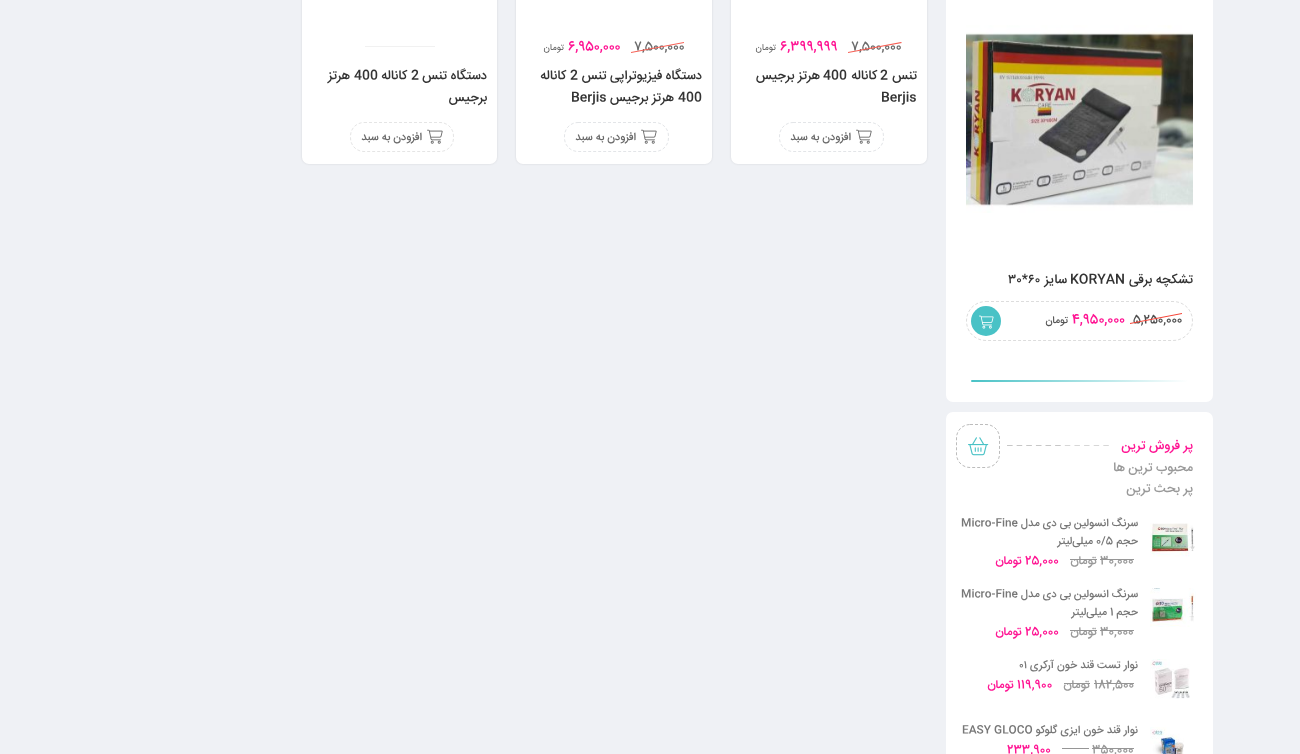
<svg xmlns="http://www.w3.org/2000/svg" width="1300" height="754">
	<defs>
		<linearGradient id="g1" gradientUnits="userSpaceOnUse" x1="971" y1="381" x2="1188" y2="381"><stop offset="0" stop-color="#49C2C6" /><stop offset="1" stop-color="#FFFFFF" /></linearGradient>
	</defs>
	<rect width="100%" height="100%" fill="#EFF1F5" />
	<rect x="731" y="-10" width="196" height="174" rx="7" fill="#000000" fill-opacity="0.1" filter="blur(1px)" />
	<rect x="731" y="-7" width="196" height="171" rx="7" fill="#FFFFFF" />
	<text x="851" y="50" font-family="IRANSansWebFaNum" font-size="12.5" font-weight="500" letter-spacing="-0.1" fill="#696969">7,500,000</text>
	<path d="M848 52L901 42L902 43L848 53Z" fill="#F65F54" />
	<text x="780" y="50" font-family="IRANSansWebFaNum" font-size="13" font-weight="500" letter-spacing="-0.1" fill="#FF1493">6,399,999</text>
	<text x="776" y="50" font-family="IRANSansWebFaNum" font-size="9" letter-spacing="-0.1" direction="rtl" fill="#555555">تومان</text>
	<text x="917" y="79" font-family="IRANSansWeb" font-size="13" font-weight="500" direction="rtl" fill="#333333">تنس</text>
	<text x="880" y="79" font-family="IRANSansWeb" font-size="13" font-weight="500" fill="#333333">2</text>
	<text x="877" y="79" font-family="IRANSansWeb" font-size="13" font-weight="500" direction="rtl" fill="#333333">کاناله</text>
	<text x="823" y="79" font-family="IRANSansWeb" font-size="13" font-weight="500" fill="#333333">400</text>
	<text x="820" y="79" font-family="IRANSansWeb" font-size="13" font-weight="500" direction="rtl" fill="#333333">هرتز برجیس</text>
	<text x="881" y="101" font-family="IRANSansWeb" font-size="13" font-weight="500" fill="#333333">Berjis</text>
	<path d="M793 122.5H870C877.5 122.5 883.5 128.5 883.5 136V138C883.5 145.5 877.5 151.5 870 151.5H793C785.5 151.5 779.5 145.5 779.5 138V136C779.5 128.5 785.5 122.5 793 122.5Z" fill="none" stroke="#E3E5E8" stroke-dasharray="3 2" />
	<image x="856" y="129" width="16" height="15" href="assets/img1.png" />
	<text x="851" y="140" font-family="IRANSansWeb" font-size="11" font-weight="500" direction="rtl" fill="#696969">افزودن به سبد</text>
	<rect x="516" y="-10" width="196" height="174" rx="7" fill="#000000" fill-opacity="0.1" filter="blur(1px)" />
	<rect x="516" y="-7" width="196" height="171" rx="7" fill="#FFFFFF" />
	<text x="634" y="50" font-family="IRANSansWebFaNum" font-size="12.5" font-weight="500" letter-spacing="-0.1" fill="#696969">7,500,000</text>
	<path d="M631 52L684 42V43L631 53Z" fill="#F65F54" />
	<text x="568" y="50" font-family="IRANSansWebFaNum" font-size="13" font-weight="500" letter-spacing="-0.1" fill="#FF1493">6,950,000</text>
	<text x="564" y="50" font-family="IRANSansWebFaNum" font-size="9" letter-spacing="-0.1" direction="rtl" fill="#555555">تومان</text>
	<text x="702" y="79" font-family="IRANSansWeb" font-size="13" font-weight="500" direction="rtl" fill="#333333">دستگاه فیزیوتراپی تنس</text>
	<text x="570" y="79" font-family="IRANSansWeb" font-size="13" font-weight="500" fill="#333333">2</text>
	<text x="566" y="79" font-family="IRANSansWeb" font-size="13" font-weight="500" direction="rtl" fill="#333333">کاناله</text>
	<text x="678" y="101" font-family="IRANSansWeb" font-size="13" font-weight="500" fill="#333333">400</text>
	<text x="674" y="101" font-family="IRANSansWeb" font-size="13" font-weight="500" direction="rtl" fill="#333333">هرتز برجیس</text>
	<text x="571" y="101" font-family="IRANSansWeb" font-size="13" font-weight="500" fill="#333333">Berjis</text>
	<path d="M578 122.5H655C662.5 122.5 668.5 128.5 668.5 136V138C668.5 145.5 662.5 151.5 655 151.5H578C570.5 151.5 564.5 145.5 564.5 138V136C564.5 128.5 570.5 122.5 578 122.5Z" fill="none" stroke="#E3E5E8" stroke-dasharray="3 2" />
	<image x="641" y="129" width="16" height="15" href="assets/img1.png" />
	<text x="636" y="140" font-family="IRANSansWeb" font-size="11" font-weight="500" direction="rtl" fill="#696969">افزودن به سبد</text>
	<rect x="302" y="-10" width="195" height="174" rx="7" fill="#000000" fill-opacity="0.1" filter="blur(1px)" />
	<rect x="302" y="-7" width="195" height="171" rx="7" fill="#FFFFFF" />
	<rect x="365" y="46" width="70" height="1" fill="#F1F1F1" />
	<text x="487" y="79" font-family="IRANSansWeb" font-size="13" font-weight="500" direction="rtl" fill="#333333">دستگاه تنس</text>
	<text x="411" y="79" font-family="IRANSansWeb" font-size="13" font-weight="500" fill="#333333">2</text>
	<text x="407" y="79" font-family="IRANSansWeb" font-size="13" font-weight="500" direction="rtl" fill="#333333">کاناله</text>
	<text x="354" y="79" font-family="IRANSansWeb" font-size="13" font-weight="500" fill="#333333">400</text>
	<g font-family="IRANSansWeb" font-size="13" font-weight="500" direction="rtl" fill="#333333">
		<text x="350" y="79">هرتز</text>
		<text x="487" y="101">برجیس</text>
	</g>
	<path d="M364 122.5H440C447.5 122.5 453.5 128.5 453.5 136V138C453.5 145.5 447.5 151.5 440 151.5H364C356.5 151.5 350.5 145.5 350.5 138V136C350.5 128.5 356.5 122.5 364 122.5Z" fill="none" stroke="#E5E5E5" stroke-dasharray="3 2" />
	<image x="427" y="129" width="16" height="15" href="assets/img1.png" />
	<text x="422" y="140" font-family="IRANSansWeb" font-size="11" font-weight="500" direction="rtl" fill="#696969">افزودن به سبد</text>
	<rect x="946" y="-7" width="267" height="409" rx="7" fill="#FFFFFF" />
	<image x="966" y="25" width="227" height="188" href="assets/img2.png" />
	<text x="1193" y="283" font-family="IRANSansWeb" font-size="13" font-weight="500" direction="rtl" fill="#333333">تشکچه برقی</text>
	<text x="1070" y="283" font-family="IRANSansWeb" font-size="13" font-weight="500" fill="#333333">KORYAN</text>
	<text x="1067" y="283" font-family="IRANSansWeb" font-size="13" font-weight="500" direction="rtl" fill="#333333">سایز</text>
	<text x="1008" y="283" font-family="IRANSansWeb" font-size="13" font-weight="500" fill="#333333">۳۰*۶۰</text>
	<path d="M986 301.5H1173C1184 301.5 1192.5 310 1192.5 321C1192.5 332 1184 340.5 1173 340.5H986C975 340.5 966.5 332 966.5 321C966.5 310 975 301.5 986 301.5Z" fill="none" stroke="#DDDDDD" stroke-dasharray="3 2" />
	<text x="1133" y="323" font-family="IRANSansWebFaNum" font-size="12" font-weight="500" letter-spacing="-0.1" fill="#4F4F4F">5,250,000</text>
	<path d="M1130 323L1182 313V314L1130 324Z" fill="#F44336" />
	<text x="1072" y="323" font-family="IRANSansWebFaNum" font-size="13" font-weight="500" letter-spacing="-0.1" fill="#FF1493">4,950,000</text>
	<text x="1068" y="323" font-family="IRANSansWebFaNum" font-size="10" font-weight="500" letter-spacing="-0.1" direction="rtl" fill="#555555">تومان</text>
	<circle cx="986" cy="321" r="15" fill="#49C2C6" />
	<image x="979" y="315" width="15" height="14" href="assets/img3.png" />
	<rect x="971" y="380" width="217" height="2" rx="1" fill="url(#g1)" />
	<rect x="946" y="412" width="267" height="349" rx="7" fill="#FFFFFF" />
	<text x="1193" y="449" font-family="IRANSansWeb" font-size="13" font-weight="500" direction="rtl" fill="#FF1493">پر فروش ترین</text>
	<path d="M970 424.5H986C993.5 424.5 999.5 430.5 999.5 438V454C999.5 461.5 993.5 467.5 986 467.5H970C962.5 467.5 956.5 461.5 956.5 454V438C956.5 430.5 962.5 424.5 970 424.5Z" fill="none" stroke="#BCBCBC" stroke-dasharray="3 2" />
	<image x="1007" y="445" width="102" height="1" href="assets/img4.png" />
	<image x="1007" y="445" width="54" height="1" href="assets/img5.png" />
	<image x="968" y="437" width="21" height="19" href="assets/img6.png" />
	<g font-family="IRANSansWeb" font-size="13" font-weight="500" direction="rtl" fill="#999999">
		<text x="1193" y="471">محبوب ترین ها</text>
		<text x="1193" y="492">پر بحث ترین</text>
	</g>
	<text x="1138" y="526" font-family="IRANSansWebFaNum" font-size="11" font-weight="500" direction="rtl" fill="#777777">سرنگ انسولین بی دی مدل</text>
	<text x="961" y="526" font-family="IRANSansWebFaNum" font-size="11" font-weight="500" fill="#777777">Micro-Fine</text>
	<image x="1150" y="523" width="45" height="34" href="assets/img7.png" />
	<text x="1138" y="544" font-family="IRANSansWebFaNum" font-size="11" font-weight="500" direction="rtl" fill="#777777">حجم</text>
	<text x="1096" y="544" font-family="IRANSansWebFaNum" font-size="11" font-weight="500" fill="#777777">0/5</text>
	<text x="1093" y="544" font-family="IRANSansWebFaNum" font-size="11" font-weight="500" direction="rtl" fill="#777777">میلی‌لیتر</text>
	<text x="1100" y="564" font-family="IRANSansWebFaNum" font-size="12" font-weight="500" fill="#999999">30,000</text>
	<rect x="1100" y="559" width="34" height="1" fill="#969696" />
	<text x="1097" y="564" font-family="IRANSansWebFaNum" font-size="12" font-weight="500" direction="rtl" fill="#999999">تومان</text>
	<rect x="1070" y="559" width="27" height="1" fill="#969696" />
	<text x="1025" y="564" font-family="IRANSansWebFaNum" font-size="12" font-weight="500" fill="#FF1493">25,000</text>
	<text x="1022" y="564" font-family="IRANSansWebFaNum" font-size="12" font-weight="500" direction="rtl" fill="#FF1493">تومان</text>
	<image x="1150" y="588" width="46" height="39" href="assets/img8.png" />
	<text x="1138" y="597" font-family="IRANSansWebFaNum" font-size="11" font-weight="500" direction="rtl" fill="#777777">سرنگ انسولین بی دی مدل</text>
	<text x="961" y="597" font-family="IRANSansWebFaNum" font-size="11" font-weight="500" fill="#777777">Micro-Fine</text>
	<text x="1138" y="615" font-family="IRANSansWebFaNum" font-size="11" font-weight="500" direction="rtl" fill="#777777">حجم</text>
	<text x="1110" y="615" font-family="IRANSansWebFaNum" font-size="11" font-weight="500" fill="#777777">1</text>
	<text x="1107" y="615" font-family="IRANSansWebFaNum" font-size="11" font-weight="500" direction="rtl" fill="#777777">میلی‌لیتر</text>
	<text x="1100" y="635" font-family="IRANSansWebFaNum" font-size="12" font-weight="500" fill="#999999">30,000</text>
	<rect x="1100" y="630" width="34" height="1" fill="#969696" />
	<text x="1097" y="635" font-family="IRANSansWebFaNum" font-size="12" font-weight="500" direction="rtl" fill="#999999">تومان</text>
	<rect x="1070" y="630" width="27" height="1" fill="#969696" />
	<text x="1025" y="635" font-family="IRANSansWebFaNum" font-size="12" font-weight="500" fill="#FF1493">25,000</text>
	<text x="1022" y="635" font-family="IRANSansWebFaNum" font-size="12" font-weight="500" direction="rtl" fill="#FF1493">تومان</text>
	<image x="1150" y="659" width="40" height="40" href="assets/img9.png" />
	<text x="1138" y="668" font-family="IRANSansWebFaNum" font-size="11" font-weight="500" direction="rtl" fill="#777777">نوار تست قند خون آرکری</text>
	<text x="1019" y="668" font-family="IRANSansWebFaNum" font-size="11" font-weight="500" fill="#777777">۰۱</text>
	<text x="1094" y="688" font-family="IRANSansWebFaNum" font-size="12" font-weight="500" fill="#999999">182,500</text>
	<rect x="1094" y="683" width="40" height="1" fill="#969696" />
	<text x="1090" y="688" font-family="IRANSansWebFaNum" font-size="12" font-weight="500" direction="rtl" fill="#999999">تومان</text>
	<rect x="1064" y="683" width="26" height="1" fill="#969696" />
	<text x="1017" y="688" font-family="IRANSansWebFaNum" font-size="12" font-weight="500" fill="#FF1493">119,900</text>
	<text x="1014" y="688" font-family="IRANSansWebFaNum" font-size="12" font-weight="500" direction="rtl" fill="#FF1493">تومان</text>
	<image x="1150" y="727" width="34" height="27" href="assets/img10.png" />
	<text x="1138" y="733" font-family="IRANSansWebFaNum" font-size="11" font-weight="500" direction="rtl" fill="#777777">نوار قند خون ایزی گلوکو</text>
	<text x="962" y="733" font-family="IRANSansWebFaNum" font-size="11" font-weight="500" fill="#777777">EASY GLOCO</text>
	<text x="1092" y="753" font-family="IRANSansWebFaNum" font-size="12" font-weight="500" fill="#999999">350,000</text>
	<rect x="1092" y="748" width="42" height="1" fill="#969696" />
	<rect x="1062" y="748" width="27" height="1" fill="#969696" />
	<text x="1007" y="753" font-family="IRANSansWebFaNum" font-size="12" font-weight="500" fill="#FF1493">233,900</text>
</svg>
